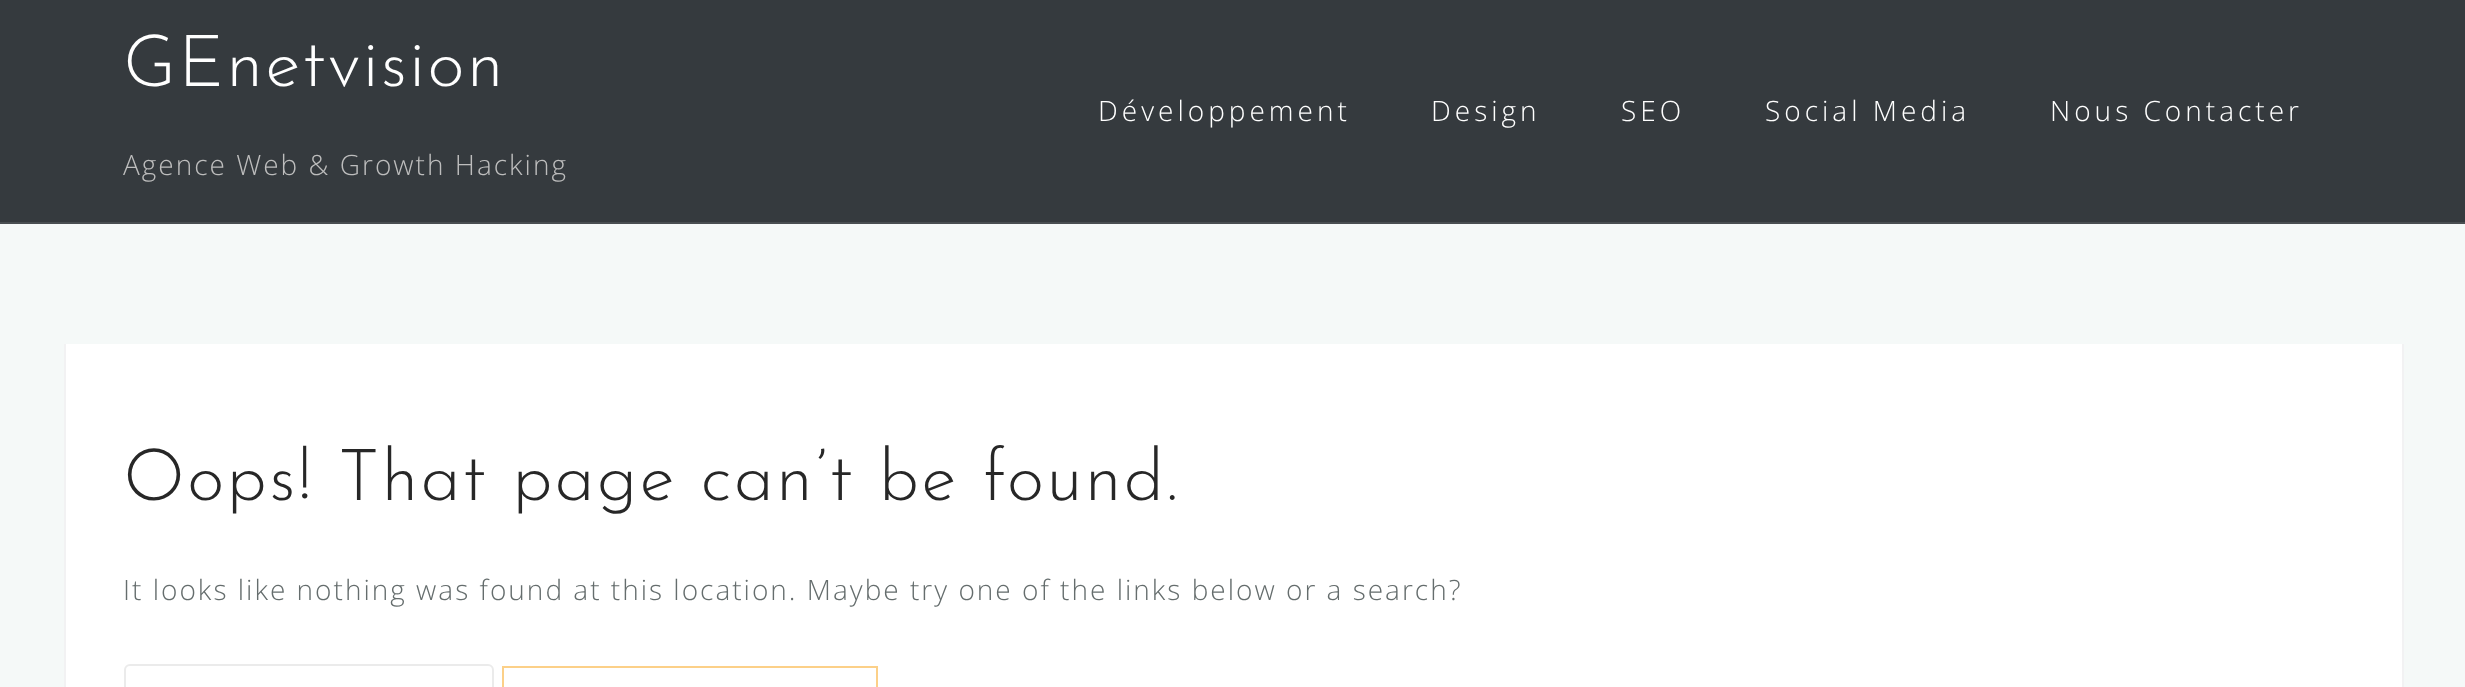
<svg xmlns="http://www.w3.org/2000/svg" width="2465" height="687">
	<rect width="100%" height="100%" fill="#F5F9F8" />
	<rect x="0" y="0" width="2465" height="222" fill="#353A3E" />
	<rect x="0" y="222" width="2465" height="2" fill="#494E51" />
	<text x="123" y="86" font-family="Josefin Sans" font-size="72" font-weight="100" letter-spacing="2" fill="#FFFFFF">GEnetvision</text>
	<text x="123" y="175" font-family="Open Sans" font-size="28" font-weight="300" letter-spacing="2" fill="#BDBDBD">Agence Web &amp; Growth Hacking</text>
	<g font-family="Open Sans" font-size="28" font-weight="300" letter-spacing="4" fill="#FFFFFF">
		<text x="1098" y="121">Développement</text>
		<text x="1431" y="121">Design</text>
		<text x="1621" y="121">SEO</text>
		<text x="1765" y="121">Social Media</text>
		<text x="2050" y="121">Nous Contacter</text>
	</g>
	<rect x="66" y="344" width="2336" height="343" fill="#FFFFFF" />
	<rect x="2402" y="344" width="2" height="343" fill="#F2F2F3" />
	<rect x="64" y="344" width="2" height="343" fill="#F2F2F3" />
	<text x="123" y="500" font-family="Josefin Sans" font-size="72" font-weight="100" letter-spacing="2" fill="#272727">Oops! That page can’t be found.</text>
	<text x="123" y="600" font-family="Open Sans" font-size="28" font-weight="300" letter-spacing="2" fill="#656D6D">It looks like nothing was found at this location. Maybe try one of the links below or a search?</text>
	<rect x="125" y="665" width="368" height="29" rx="5" fill="none" stroke="#EBEBEB" stroke-width="2" />
	<rect x="503" y="667" width="374" height="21" fill="none" stroke="#FCD088" stroke-width="2" />
</svg>
